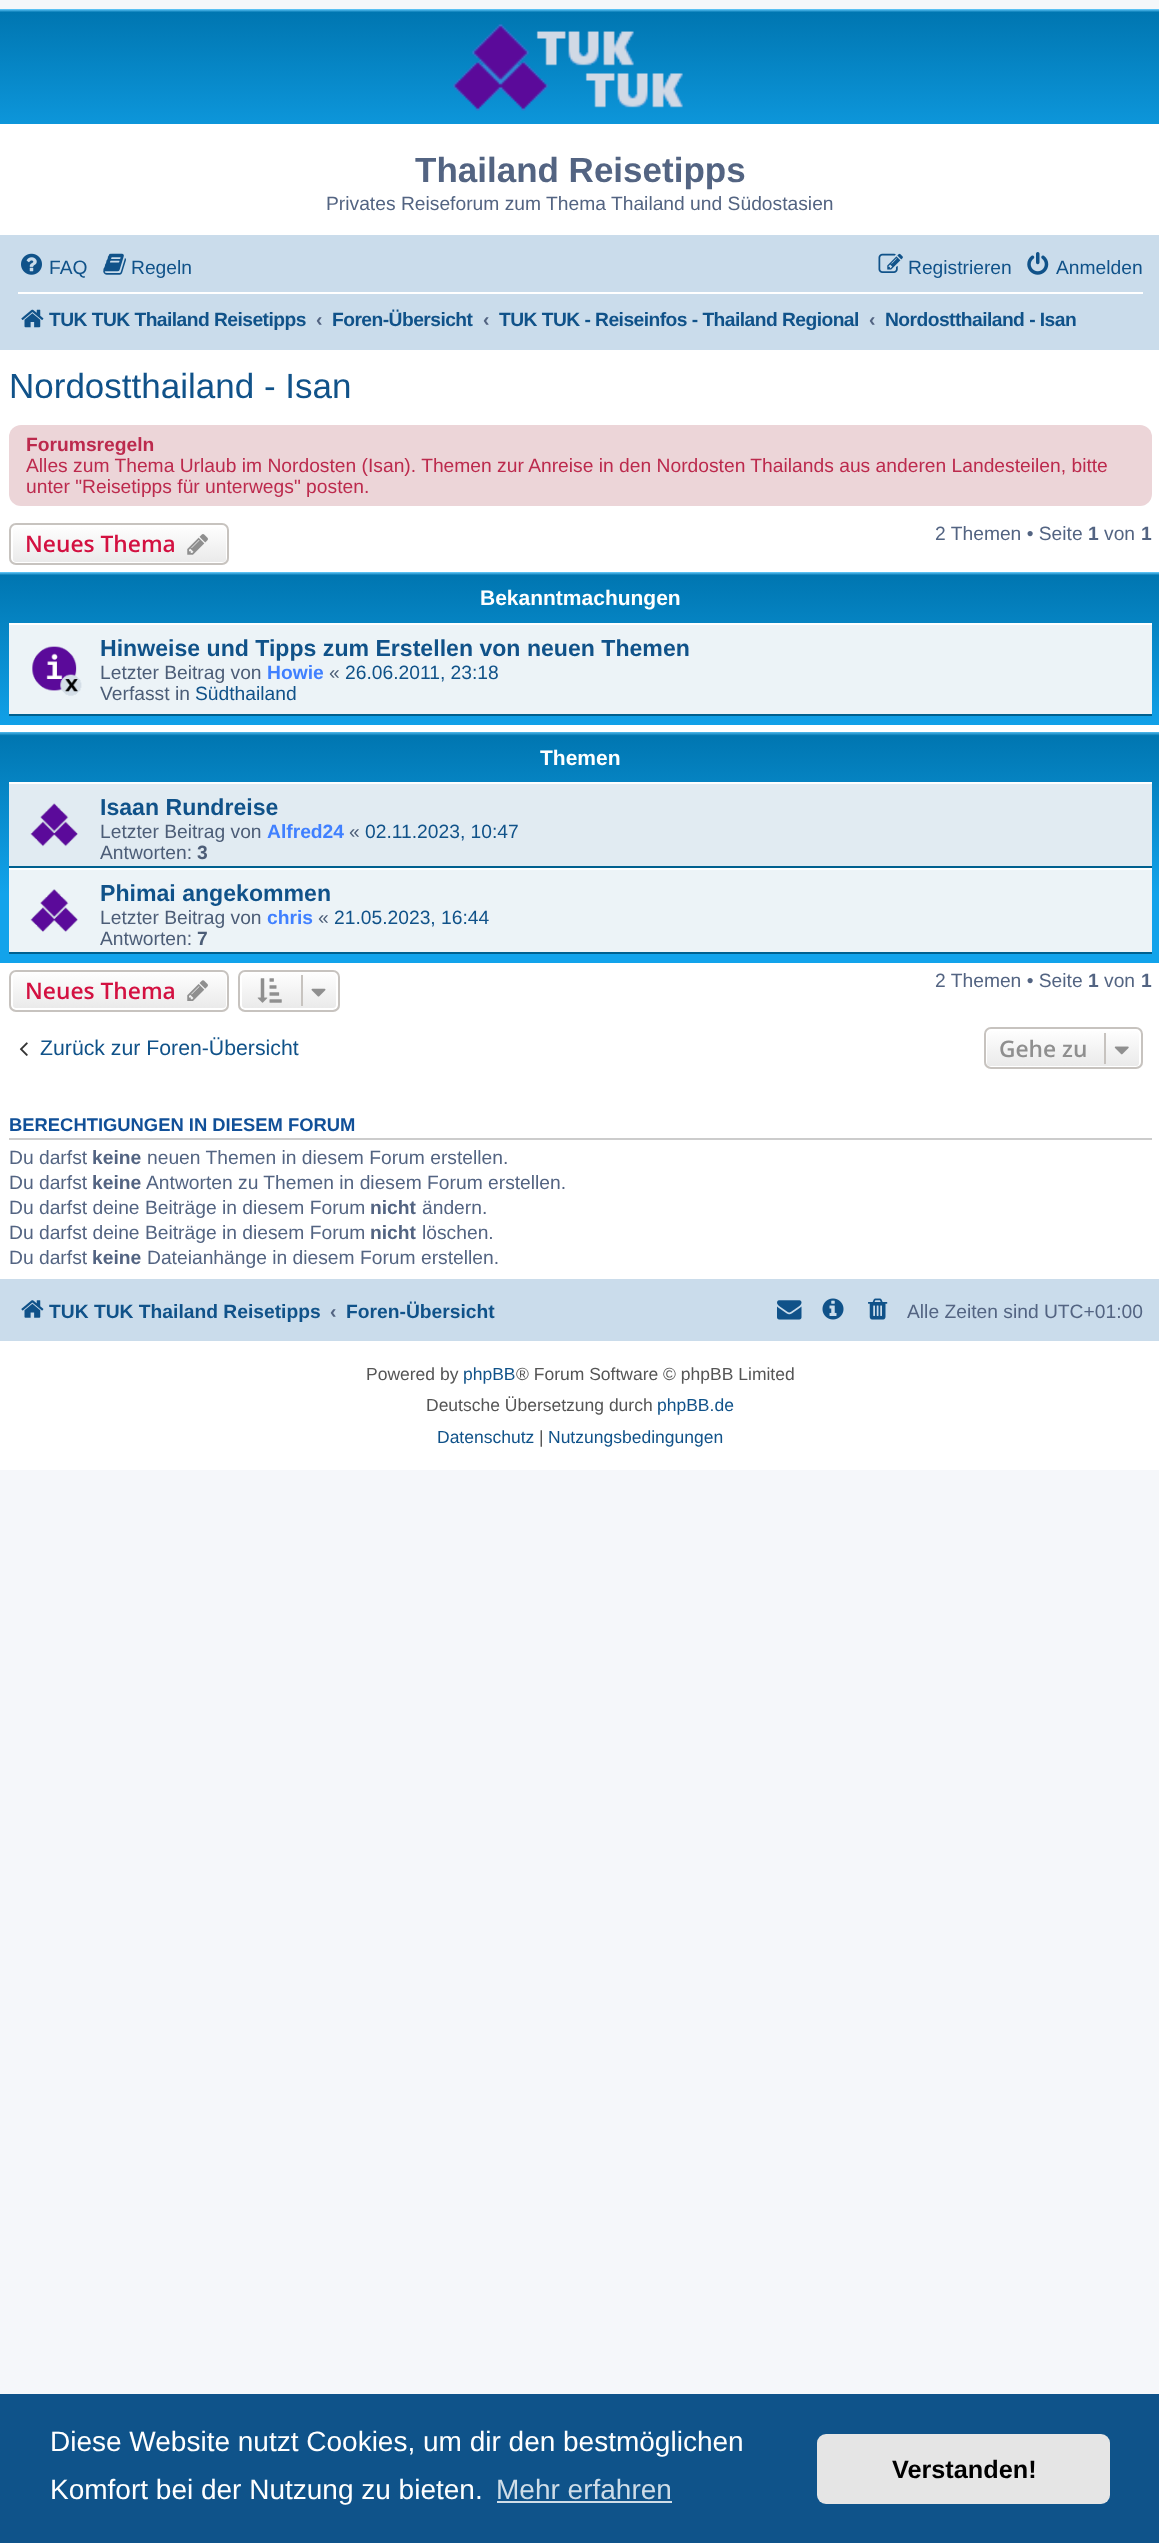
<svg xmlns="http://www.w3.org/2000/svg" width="1159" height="2543">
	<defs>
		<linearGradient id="g1" gradientUnits="userSpaceOnUse" x1="580" y1="9" x2="580" y2="170"><stop offset="0" stop-color="#6ACEFF" /><stop offset="0.02" stop-color="#0076B1" /><stop offset="1" stop-color="#12A3EB" /></linearGradient>
		<clipPath id="clip1"><rect x="333" y="299" width="140" height="42" /></clipPath>
		<clipPath id="clip2"><rect x="886" y="299" width="190" height="42" /></clipPath>
		<clipPath id="clip3"><rect x="9" y="523" width="220" height="42" rx="7" /></clipPath>
		<linearGradient id="g2" gradientUnits="userSpaceOnUse" x1="119" y1="525" x2="119" y2="564"><stop offset="0" stop-color="#FFFFFF" /><stop offset="1" stop-color="#E9E9E9" /></linearGradient>
		<linearGradient id="g3" gradientUnits="userSpaceOnUse" x1="580" y1="572" x2="580" y2="733"><stop offset="0" stop-color="#6ACEFF" /><stop offset="0.02" stop-color="#0076B1" /><stop offset="1" stop-color="#12A3EB" /></linearGradient>
		<linearGradient id="g4" gradientUnits="userSpaceOnUse" x1="580" y1="731" x2="580" y2="963"><stop offset="0" stop-color="#6ACEFF" /><stop offset="0.02" stop-color="#0076B1" /><stop offset="0.7" stop-color="#12A3EB" /><stop offset="1" stop-color="#12A3EB" /></linearGradient>
		<clipPath id="clip4"><rect x="9" y="970" width="220" height="42" rx="7" /></clipPath>
		<linearGradient id="g5" gradientUnits="userSpaceOnUse" x1="119" y1="971" x2="119" y2="1010"><stop offset="0" stop-color="#FFFFFF" /><stop offset="1" stop-color="#E9E9E9" /></linearGradient>
		<clipPath id="clip5"><rect x="238" y="970" width="102" height="42" rx="7" /></clipPath>
		<linearGradient id="g6" gradientUnits="userSpaceOnUse" x1="289" y1="971" x2="289" y2="1010"><stop offset="0" stop-color="#FFFFFF" /><stop offset="1" stop-color="#E9E9E9" /></linearGradient>
		<clipPath id="clip6"><rect x="984" y="1027" width="159" height="42" rx="7" /></clipPath>
		<linearGradient id="g7" gradientUnits="userSpaceOnUse" x1="1063" y1="1029" x2="1063" y2="1068"><stop offset="0" stop-color="#FFFFFF" /><stop offset="1" stop-color="#E9E9E9" /></linearGradient>
	</defs>
	<rect width="100%" height="100%" fill="#F5F7FA" />
	<rect x="0" y="124" width="1159" height="1346" fill="#FFFFFF" />
	<rect x="0" y="9" width="1159" height="115" fill="url(#g1)" />
	<image x="453" y="24" width="230" height="87" href="assets/img1.png" />
	<text x="415" y="182" font-family="Liberation Sans" font-size="35" font-weight="700" fill="#536482">Thailand Reisetipps</text>
	<text x="326" y="210" font-family="Liberation Sans" font-size="19.25" fill="#536482">Privates Reiseforum zum Thema Thailand und Südostasien</text>
	<rect x="0" y="235" width="1159" height="115" fill="#CADCEB" />
	<image x="21" y="253" width="21" height="22" href="assets/img2.png" />
	<text x="49" y="274" font-family="Liberation Sans" font-size="19.25" fill="#105289">FAQ</text>
	<image x="103" y="253" width="23" height="22" href="assets/img3.png" />
	<text x="131" y="274" font-family="Liberation Sans" font-size="19.25" fill="#105289">Regeln</text>
	<image x="878" y="253" width="25" height="20" href="assets/img4.png" />
	<text x="908" y="274" font-family="Liberation Sans" font-size="19.25" fill="#105289">Registrieren</text>
	<image x="1027" y="252" width="22" height="23" href="assets/img5.png" />
	<text x="1056" y="274" font-family="Liberation Sans" font-size="19.25" fill="#105289">Anmelden</text>
	<rect x="18" y="292" width="1125" height="2" fill="#FFFFFF" />
	<image x="21" y="309" width="23" height="19" href="assets/img6.png" />
	<text x="49" y="326" font-family="Liberation Sans" font-size="19.25" font-weight="700" letter-spacing="-0.55" fill="#105289">TUK TUK Thailand Reisetipps</text>
	<text x="316" y="326" font-family="Liberation Sans" font-size="19.25" font-weight="700" fill="#536482">‹</text>
	<g clip-path="url(#clip1)">
		<text x="332" y="326" font-family="Liberation Sans" font-size="19.25" font-weight="700" letter-spacing="-0.55" fill="#105289">Foren-Übersicht</text>
	</g>
	<text x="483" y="326" font-family="Liberation Sans" font-size="19.25" font-weight="700" fill="#536482">‹</text>
	<text x="499" y="326" font-family="Liberation Sans" font-size="19.25" font-weight="700" letter-spacing="-0.55" fill="#105289">TUK TUK - Reiseinfos - Thailand Regional</text>
	<text x="869" y="326" font-family="Liberation Sans" font-size="19.25" font-weight="700" fill="#536482">‹</text>
	<g clip-path="url(#clip2)">
		<text x="885" y="326" font-family="Liberation Sans" font-size="19.25" font-weight="700" letter-spacing="-0.55" fill="#105289">Nordostthailand - Isan</text>
	</g>
	<text x="9" y="398" font-family="Liberation Sans" font-size="35" fill="#105289">Nordostthailand - Isan</text>
	<rect x="9" y="425" width="1143" height="81" rx="12" fill="#ECD5D8" />
	<text x="26" y="451" font-family="Liberation Sans" font-size="19.25" font-weight="700" fill="#BC2A4D">Forumsregeln</text>
	<g font-family="Liberation Sans" font-size="19.25" fill="#BC2A4D">
		<text x="26" y="472">Alles zum Thema Urlaub im Nordosten (Isan). Themen zur Anreise in den Nordosten Thailands aus anderen Landesteilen, bitte</text>
		<text x="26" y="493">unter "Reisetipps für unterwegs" posten.</text>
	</g>
	<g clip-path="url(#clip3)">
		<rect x="9" y="525" width="220" height="39" fill="url(#g2)" />
	</g>
	<rect x="12" y="526" width="215" height="37" rx="4" fill="none" stroke="#FFFFFF" stroke-width="2" />
	<rect x="10" y="524" width="218" height="40" rx="6" fill="none" stroke="#C7C3BF" stroke-width="2" />
	<text x="25" y="552" font-family="Open Sans" font-size="22.75" font-weight="600" fill="#D31141">Neues Thema</text>
	<image x="187" y="534" width="21" height="21" href="assets/img7.png" />
	<text x="935" y="540" font-family="Liberation Sans" font-size="19.25" fill="#536482">2 Themen • Seite</text>
	<text x="1088" y="540" font-family="Liberation Sans" font-size="19.25" font-weight="700" fill="#536482">1</text>
	<text x="1104" y="540" font-family="Liberation Sans" font-size="19.25" fill="#536482">von</text>
	<text x="1141" y="540" font-family="Liberation Sans" font-size="19.25" font-weight="700" fill="#536482">1</text>
	<rect x="0" y="572" width="1159" height="153" fill="url(#g3)" />
	<text x="480" y="605" font-family="Liberation Sans" font-size="21" font-weight="700" fill="#FFFFFF">Bekanntmachungen</text>
	<rect x="9" y="625" width="1143" height="89" fill="#ECF3F7" />
	<rect x="9" y="623" width="1143" height="2" fill="#FFFFFF" />
	<rect x="9" y="714" width="1143" height="2" fill="#00608F" />
	<image x="32" y="646" width="50" height="50" href="assets/img8.png" />
	<text x="100" y="656" font-family="Liberation Sans" font-size="23.1" font-weight="700" fill="#105289">Hinweise und Tipps zum Erstellen von neuen Themen</text>
	<text x="100" y="679" font-family="Liberation Sans" font-size="19.25" fill="#4C5D77">Letzter Beitrag von</text>
	<text x="267" y="679" font-family="Liberation Sans" font-size="19.25" font-weight="700" fill="#4080FF">Howie</text>
	<text x="329" y="679" font-family="Liberation Sans" font-size="19.25" fill="#4C5D77">«</text>
	<text x="345" y="679" font-family="Liberation Sans" font-size="19.25" fill="#105289">26.06.2011, 23:18</text>
	<text x="100" y="700" font-family="Liberation Sans" font-size="19.25" fill="#4C5D77">Verfasst in</text>
	<text x="195" y="700" font-family="Liberation Sans" font-size="19.25" fill="#105289">Südthailand</text>
	<rect x="0" y="732" width="1159" height="231" fill="url(#g4)" />
	<text x="540" y="765" font-family="Liberation Sans" font-size="21" font-weight="700" fill="#FFFFFF">Themen</text>
	<rect x="9" y="784" width="1143" height="82" fill="#E1EBF2" />
	<rect x="9" y="782" width="1143" height="2" fill="#FFFFFF" />
	<rect x="9" y="866" width="1143" height="2" fill="#00608F" />
	<image x="30" y="803" width="48" height="44" href="assets/img9.png" />
	<text x="100" y="815" font-family="Liberation Sans" font-size="23.1" font-weight="700" fill="#105289">Isaan Rundreise</text>
	<text x="100" y="838" font-family="Liberation Sans" font-size="19.25" fill="#4C5D77">Letzter Beitrag von</text>
	<text x="267" y="838" font-family="Liberation Sans" font-size="19.25" font-weight="700" fill="#4080FF">Alfred24</text>
	<text x="349" y="838" font-family="Liberation Sans" font-size="19.25" fill="#4C5D77">«</text>
	<text x="365" y="838" font-family="Liberation Sans" font-size="19.25" fill="#105289">02.11.2023, 10:47</text>
	<text x="100" y="859" font-family="Liberation Sans" font-size="19.25" fill="#4C5D77">Antworten:</text>
	<text x="197" y="859" font-family="Liberation Sans" font-size="19.25" font-weight="700" fill="#4C5D77">3</text>
	<rect x="9" y="870" width="1143" height="82" fill="#ECF3F7" />
	<rect x="9" y="868" width="1143" height="2" fill="#FFFFFF" />
	<rect x="9" y="952" width="1143" height="2" fill="#00608F" />
	<image x="30" y="889" width="48" height="43" href="assets/img10.png" />
	<text x="100" y="901" font-family="Liberation Sans" font-size="23.1" font-weight="700" fill="#105289">Phimai angekommen</text>
	<text x="100" y="924" font-family="Liberation Sans" font-size="19.25" fill="#4C5D77">Letzter Beitrag von</text>
	<text x="267" y="924" font-family="Liberation Sans" font-size="19.25" font-weight="700" fill="#4080FF">chris</text>
	<text x="318" y="924" font-family="Liberation Sans" font-size="19.25" fill="#4C5D77">«</text>
	<text x="334" y="924" font-family="Liberation Sans" font-size="19.25" fill="#105289">21.05.2023, 16:44</text>
	<text x="100" y="945" font-family="Liberation Sans" font-size="19.25" fill="#4C5D77">Antworten:</text>
	<text x="197" y="945" font-family="Liberation Sans" font-size="19.25" font-weight="700" fill="#4C5D77">7</text>
	<g clip-path="url(#clip4)">
		<rect x="9" y="971" width="220" height="39" fill="url(#g5)" />
	</g>
	<rect x="12" y="972" width="215" height="37" rx="4" fill="none" stroke="#FFFFFF" stroke-width="2" />
	<rect x="10" y="971" width="218" height="40" rx="6" fill="none" stroke="#C7C3BF" stroke-width="2" />
	<text x="25" y="999" font-family="Open Sans" font-size="22.75" font-weight="600" fill="#D31141">Neues Thema</text>
	<image x="187" y="980" width="21" height="21" href="assets/img11.png" />
	<g clip-path="url(#clip5)">
		<rect x="238" y="971" width="102" height="39" fill="url(#g6)" />
	</g>
	<rect x="241" y="972" width="96" height="37" rx="4" fill="none" stroke="#FFFFFF" stroke-width="2" />
	<rect x="239" y="971" width="100" height="40" rx="6" fill="none" stroke="#C7C3BF" stroke-width="2" />
	<image x="257" y="978" width="25" height="25" href="assets/img12.png" />
	<rect x="301" y="975" width="2" height="31" fill="#C7C3BF" />
	<image x="311" y="988" width="15" height="9" href="assets/img13.png" />
	<text x="935" y="987" font-family="Liberation Sans" font-size="19.25" fill="#536482">2 Themen • Seite</text>
	<text x="1088" y="987" font-family="Liberation Sans" font-size="19.25" font-weight="700" fill="#536482">1</text>
	<text x="1104" y="987" font-family="Liberation Sans" font-size="19.25" fill="#536482">von</text>
	<text x="1141" y="987" font-family="Liberation Sans" font-size="19.25" font-weight="700" fill="#536482">1</text>
	<image x="19" y="1042" width="9" height="14" href="assets/img14.png" />
	<text x="40" y="1055" font-family="Liberation Sans" font-size="21.25" fill="#105289">Zurück zur Foren-Übersicht</text>
	<g clip-path="url(#clip6)">
		<rect x="984" y="1029" width="159" height="39" fill="url(#g7)" />
	</g>
	<rect x="986" y="1030" width="154" height="37" rx="4" fill="none" stroke="#FFFFFF" stroke-width="2" />
	<rect x="985" y="1028" width="157" height="40" rx="6" fill="none" stroke="#C7C3BF" stroke-width="2" />
	<text x="999" y="1057" font-family="Open Sans" font-size="22.75" font-weight="600" fill="#8F8F8F">Gehe zu</text>
	<rect x="1104" y="1033" width="2" height="31" fill="#C7C3BF" />
	<image x="1114" y="1046" width="15" height="9" href="assets/img15.png" />
	<rect x="9" y="1138" width="1143" height="2" fill="#CCCCCC" />
	<text x="9" y="1131" font-family="Liberation Sans" font-size="18.4" font-weight="700" fill="#115098">BERECHTIGUNGEN IN DIESEM FORUM</text>
	<text x="9" y="1164" font-family="Liberation Sans" font-size="19.25" fill="#536482">Du darfst</text>
	<text x="92" y="1164" font-family="Liberation Sans" font-size="19.25" font-weight="700" fill="#536482">keine</text>
	<g font-family="Liberation Sans" font-size="19.25" fill="#536482">
		<text x="147" y="1164">neuen Themen in diesem Forum erstellen.</text>
		<text x="9" y="1189">Du darfst</text>
	</g>
	<text x="92" y="1189" font-family="Liberation Sans" font-size="19.25" font-weight="700" fill="#536482">keine</text>
	<g font-family="Liberation Sans" font-size="19.25" fill="#536482">
		<text x="146" y="1189">Antworten zu Themen in diesem Forum erstellen.</text>
		<text x="9" y="1214">Du darfst deine Beiträge in diesem Forum</text>
	</g>
	<text x="370" y="1214" font-family="Liberation Sans" font-size="19.25" font-weight="700" fill="#536482">nicht</text>
	<g font-family="Liberation Sans" font-size="19.25" fill="#536482">
		<text x="422" y="1214">ändern.</text>
		<text x="9" y="1239">Du darfst deine Beiträge in diesem Forum</text>
	</g>
	<text x="370" y="1239" font-family="Liberation Sans" font-size="19.25" font-weight="700" fill="#536482">nicht</text>
	<g font-family="Liberation Sans" font-size="19.25" fill="#536482">
		<text x="422" y="1239">löschen.</text>
		<text x="9" y="1264">Du darfst</text>
	</g>
	<text x="92" y="1264" font-family="Liberation Sans" font-size="19.25" font-weight="700" fill="#536482">keine</text>
	<text x="147" y="1264" font-family="Liberation Sans" font-size="19.25" fill="#536482">Dateianhänge in diesem Forum erstellen.</text>
	<rect x="0" y="1279" width="1159" height="62" fill="#CADCEB" />
	<image x="21" y="1300" width="23" height="18" href="assets/img16.png" />
	<text x="49" y="1318" font-family="Liberation Sans" font-size="19.25" font-weight="700" fill="#105289">TUK TUK Thailand Reisetipps</text>
	<text x="330" y="1318" font-family="Liberation Sans" font-size="19.25" font-weight="700" fill="#536482">‹</text>
	<text x="346" y="1318" font-family="Liberation Sans" font-size="19.25" font-weight="700" fill="#105289">Foren-Übersicht</text>
	<image x="777" y="1300" width="25" height="20" href="assets/img17.png" />
	<image x="822" y="1298" width="22" height="22" href="assets/img18.png" />
	<image x="868" y="1298" width="20" height="22" href="assets/img19.png" />
	<text x="907" y="1318" font-family="Liberation Sans" font-size="19.25" fill="#536482">Alle Zeiten sind UTC+01:00</text>
	<text x="366" y="1380" font-family="Liberation Sans" font-size="17.5" fill="#555555">Powered by</text>
	<text x="463" y="1380" font-family="Liberation Sans" font-size="17.5" fill="#105289">phpBB</text>
	<g font-family="Liberation Sans" font-size="17.5" fill="#555555">
		<text x="516" y="1380">® Forum Software © phpBB Limited</text>
		<text x="426" y="1411">Deutsche Übersetzung durch</text>
	</g>
	<g font-family="Liberation Sans" font-size="17.5" fill="#105289">
		<text x="657" y="1411">phpBB.de</text>
		<text x="437" y="1443">Datenschutz</text>
	</g>
	<text x="539" y="1443" font-family="Liberation Sans" font-size="17.5" fill="#555555">|</text>
	<text x="548" y="1443" font-family="Liberation Sans" font-size="17.5" fill="#105289">Nutzungsbedingungen</text>
	<rect x="0" y="2394" width="1159" height="149" fill="#0F538A" />
	<g font-family="Liberation Sans" font-size="28" fill="#FFFFFF">
		<text x="50" y="2451">Diese Website nutzt Cookies, um dir den bestmöglichen</text>
		<text x="50" y="2499">Komfort bei der Nutzung zu bieten.</text>
	</g>
	<text x="496" y="2499" font-family="Liberation Sans" font-size="28" fill="#CFDDE8">Mehr erfahren</text>
	<rect x="497" y="2501" width="175" height="2" fill="#CFDDE8" />
	<rect x="817" y="2434" width="293" height="70" rx="9" fill="#E5E5E5" />
	<text x="892" y="2478" font-family="Liberation Sans" font-size="25.25" font-weight="700" fill="#000000">Verstanden!</text>
</svg>
